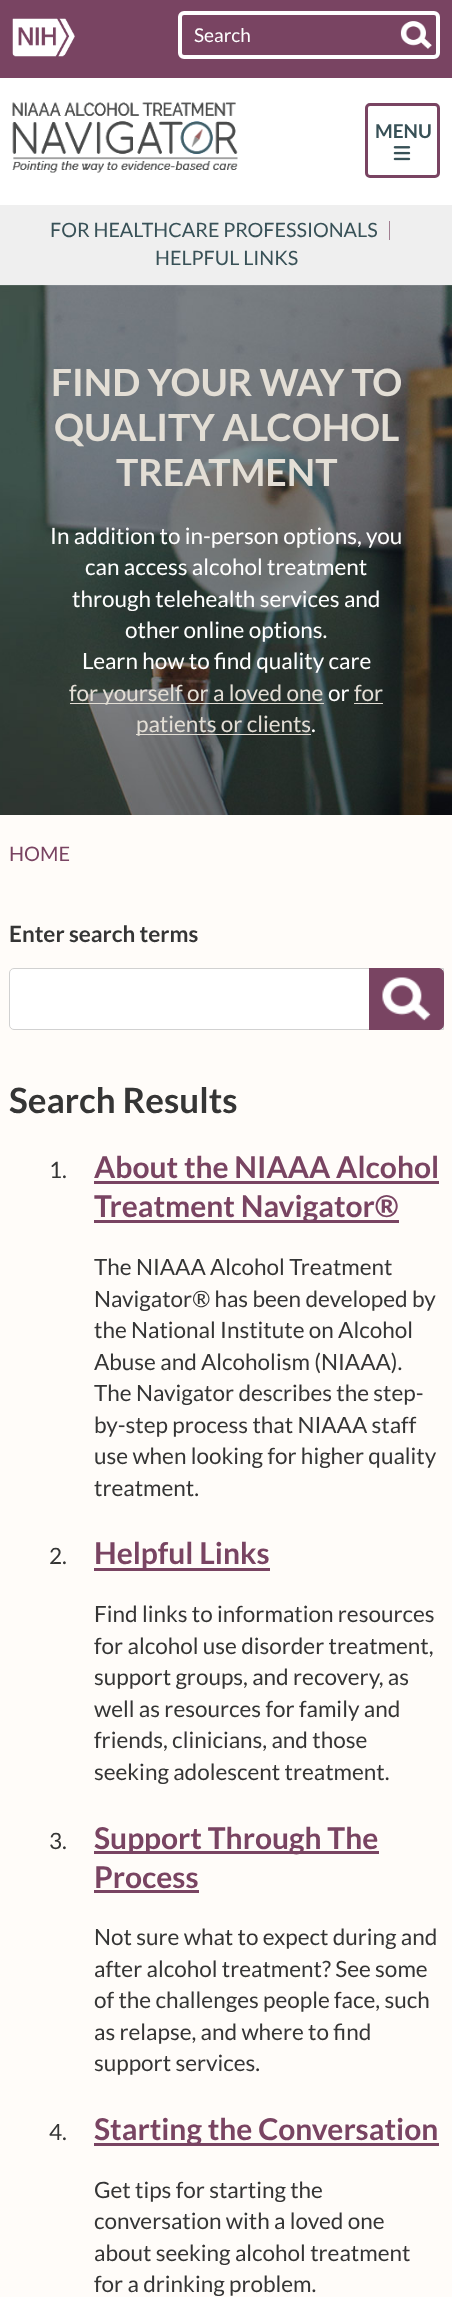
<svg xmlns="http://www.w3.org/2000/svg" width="452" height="2297">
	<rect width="100%" height="100%" fill="#FFFCF9" />
	<rect x="0" y="0" width="452" height="78" fill="#794462" />
	<image x="12" y="18" width="63" height="39" href="assets/img1.png" />
	<rect x="180" y="13" width="258" height="44" rx="4" fill="none" stroke="#FFFFFF" stroke-width="4" />
	<text x="194" y="42" font-family="Lato" font-size="19" fill="#FFFFFF">Search</text>
	<image x="400" y="21" width="32" height="28" href="assets/img2.png" />
	<rect x="0" y="78" width="452" height="127" fill="#FFFFFF" />
	<image x="12" y="102" width="226" height="71" href="assets/img3.png" />
	<rect x="366.5" y="104.5" width="72" height="72" rx="3.5" fill="none" stroke="#794462" stroke-width="3" />
	<text x="375" y="138" font-family="Lato" font-size="19" font-weight="700" fill="#385157">MENU</text>
	<image x="393" y="146" width="18" height="15" href="assets/img4.png" />
	<rect x="0" y="205" width="452" height="80" fill="#EFEFEF" />
	<rect x="389" y="221" width="1" height="19" fill="#A27E91" />
	<g font-family="Lato" font-size="19.75" fill="#385157">
		<text x="50" y="237">FOR HEALTHCARE PROFESSIONALS</text>
		<text x="155" y="265">HELPFUL LINKS</text>
	</g>
	<image x="0" y="285" width="452" height="530" href="assets/img5.png" />
	<g font-family="Lato" font-size="37.5" font-weight="700" fill="#E3DED5">
		<text x="51" y="396">FIND YOUR WAY TO</text>
		<text x="54" y="441">QUALITY ALCOHOL</text>
		<text x="116" y="486">TREATMENT</text>
	</g>
	<g font-family="Lato" font-size="22.5" fill="#FFFFFF">
		<text x="50" y="544">In addition to in-person options, you</text>
		<text x="85" y="575">can access alcohol treatment</text>
		<text x="72" y="607">through telehealth services and</text>
		<text x="125" y="638">other online options.</text>
		<text x="82" y="669">Learn how to find quality care</text>
	</g>
	<rect x="70" y="703" width="254" height="1" fill="#E3DED5" />
	<text x="69" y="701" font-family="Lato" font-size="22.5" fill="#E3DED5">for yourself or a loved one</text>
	<text x="328" y="701" font-family="Lato" font-size="22.5" fill="#FFFFFF">or</text>
	<text x="354" y="701" font-family="Lato" font-size="22.5" fill="#E3DED5">for</text>
	<rect x="354" y="703" width="29" height="1" fill="#E3DED5" />
	<rect x="136" y="734" width="175" height="1" fill="#E3DED5" />
	<text x="136" y="732" font-family="Lato" font-size="22.5" fill="#E3DED5">patients or clients</text>
	<text x="311" y="732" font-family="Lato" font-size="22.5" fill="#FFFFFF">.</text>
	<text x="9" y="861" font-family="Lato" font-size="20" fill="#794462">HOME</text>
	<text x="9" y="942" font-family="Lato" font-size="22.5" font-weight="700" fill="#353535">Enter search terms</text>
	<path d="M14 968.5H443.5V1029.5H14C11.5 1029.5 9.5 1027.5 9.5 1025V973C9.5 970.5 11.5 968.5 14 968.5Z" fill="#FFFFFF" stroke="#D1D1D1" />
	<path d="M369 968H438C441.5 968 444 970.5 444 974V1024C444 1027.5 441.5 1030 438 1030H369Z" fill="#794462" />
	<image x="382" y="977" width="49" height="44" href="assets/img6.png" />
	<text x="9" y="1113" font-family="Lato" font-size="35" font-weight="700" fill="#353535">Search Results</text>
	<text x="49" y="1178" font-family="Lato" font-size="22.5" fill="#353535">1.</text>
	<text x="94" y="1178" font-family="Lato" font-size="30" font-weight="700" fill="#794462">About the NIAAA Alcohol</text>
	<rect x="94" y="1181" width="345" height="3" fill="#794462" />
	<rect x="94" y="1220" width="305" height="3" fill="#794462" />
	<text x="94" y="1217" font-family="Lato" font-size="30" font-weight="700" fill="#794462">Treatment Navigator®</text>
	<g font-family="Lato" font-size="22.5" fill="#353535">
		<text x="94" y="1275">The NIAAA Alcohol Treatment</text>
		<text x="94" y="1307">Navigator® has been developed by</text>
		<text x="94" y="1338">the National Institute on Alcohol</text>
		<text x="94" y="1370">Abuse and Alcoholism (NIAAA).</text>
		<text x="94" y="1401">The Navigator describes the step-</text>
		<text x="94" y="1433">by-step process that NIAAA staff</text>
		<text x="94" y="1464">use when looking for higher quality</text>
		<text x="94" y="1496">treatment.</text>
		<text x="49" y="1564">2.</text>
	</g>
	<rect x="94" y="1568" width="176" height="3" fill="#794462" />
	<text x="94" y="1564" font-family="Lato" font-size="30" font-weight="700" fill="#794462">Helpful Links</text>
	<g font-family="Lato" font-size="22.5" fill="#353535">
		<text x="94" y="1622">Find links to information resources</text>
		<text x="94" y="1654">for alcohol use disorder treatment,</text>
		<text x="94" y="1685">support groups, and recovery, as</text>
		<text x="94" y="1717">well as resources for family and</text>
		<text x="94" y="1748">friends, clinicians, and those</text>
		<text x="94" y="1780">seeking adolescent treatment.</text>
		<text x="49" y="1849">3.</text>
	</g>
	<rect x="94" y="1851" width="285" height="3" fill="#794462" />
	<g font-family="Lato" font-size="30" font-weight="700" fill="#794462">
		<text x="94" y="1849">Support Through The</text>
		<text x="94" y="1888">Process</text>
	</g>
	<rect x="94" y="1890" width="105" height="3" fill="#794462" />
	<g font-family="Lato" font-size="22.5" fill="#353535">
		<text x="94" y="1945">Not sure what to expect during and</text>
		<text x="94" y="1977">after alcohol treatment? See some</text>
		<text x="94" y="2008">of the challenges people face, such</text>
		<text x="94" y="2040">as relapse, and where to find</text>
		<text x="94" y="2071">support services.</text>
		<text x="49" y="2140">4.</text>
	</g>
	<rect x="94" y="2143" width="345" height="3" fill="#794462" />
	<text x="94" y="2140" font-family="Lato" font-size="30" font-weight="700" fill="#794462">Starting the Conversation</text>
	<g font-family="Lato" font-size="22.5" fill="#353535">
		<text x="94" y="2198">Get tips for starting the</text>
		<text x="94" y="2229">conversation with a loved one</text>
		<text x="94" y="2261">about seeking alcohol treatment</text>
		<text x="94" y="2292">for a drinking problem.</text>
	</g>
</svg>
